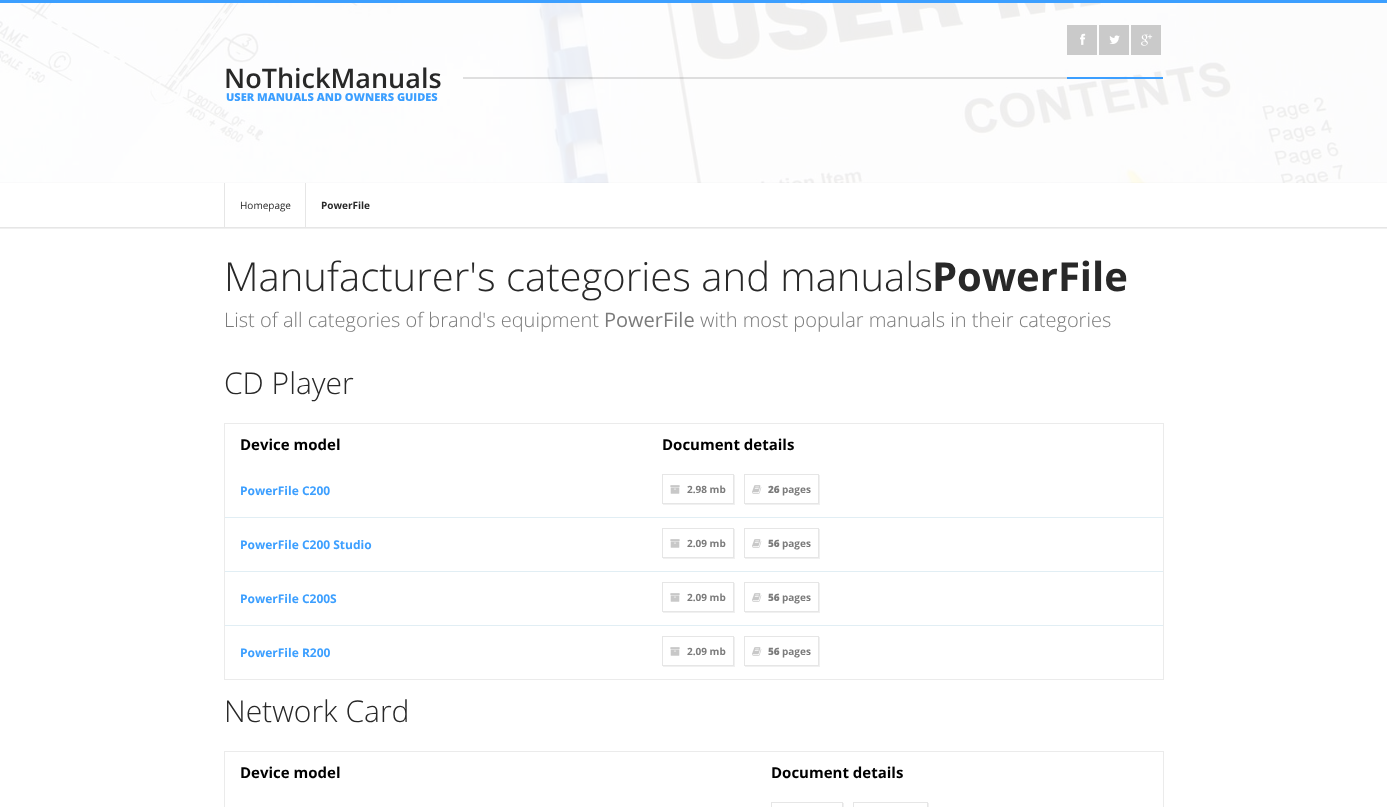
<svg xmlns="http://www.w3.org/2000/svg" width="1387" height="807">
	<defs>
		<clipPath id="clip1"><path d="M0 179H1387V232H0ZM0 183H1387V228H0Z" clip-rule="evenodd" /></clipPath>
	</defs>
	<rect width="100%" height="100%" fill="#FFFFFF" />
	<g clip-path="url(#clip1)">
		<rect x="0" y="182" width="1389" height="47" fill="#F0F0F0" filter="blur(0.5px)" />
	</g>
	<image x="0" y="3" width="1387" height="180" href="assets/img1.png" />
	<rect x="0" y="3" width="1387" height="180" fill="#FFFFFF" fill-opacity="0.7" />
	<rect x="0" y="0" width="1387" height="3" fill="#3C9FFF" />
	<rect x="463" y="77" width="604" height="2" fill="#000000" fill-opacity="0.12" />
	<rect x="1067" y="77" width="96" height="2" fill="#3C9FFF" />
	<rect x="1067" y="25" width="30" height="30" fill="#CACACA" />
	<image x="1080" y="33" width="6" height="12" href="assets/img2.png" />
	<rect x="1099" y="25" width="30" height="30" fill="#CACACA" />
	<image x="1109" y="35" width="11" height="9" href="assets/img3.png" />
	<rect x="1131" y="25" width="30" height="30" fill="#CACACA" />
	<image x="1141" y="34" width="12" height="12" href="assets/img4.png" />
	<text x="224" y="88" font-family="Open Sans" font-size="27" font-weight="600" fill="#282828">NoThickManuals</text>
	<text x="226" y="101" font-family="Open Sans" font-size="11" font-weight="800" fill="#3C9FFF">USER MANUALS AND OWNERS GUIDES</text>
	<rect x="0" y="227" width="1387" height="1" fill="#E6E6E6" />
	<rect x="224" y="183" width="1" height="44" fill="#E6E6E6" />
	<text x="240" y="209" font-family="Open Sans" font-size="10" fill="#282828">Homepage</text>
	<rect x="305" y="183" width="1" height="44" fill="#E6E6E6" />
	<text x="321" y="209" font-family="Open Sans" font-size="10" font-weight="700" fill="#282828">PowerFile</text>
	<text x="224" y="291" font-family="Open Sans" font-size="40" font-weight="300" fill="#282828">Manufacturer's categories and manuals</text>
	<text x="932" y="291" font-family="Open Sans" font-size="40" font-weight="700" fill="#282828">PowerFile</text>
	<text x="224" y="327" font-family="Open Sans" font-size="20" font-weight="300" fill="#7B7B7B">List of all categories of brand's equipment</text>
	<text x="604" y="327" font-family="Open Sans" font-size="20" fill="#7B7B7B">PowerFile</text>
	<text x="700" y="327" font-family="Open Sans" font-size="20" font-weight="300" fill="#7B7B7B">with most popular manuals in their categories</text>
	<text x="224" y="394" font-family="Open Sans" font-size="30" font-weight="300" fill="#282828">CD Player</text>
	<rect x="224.5" y="423.5" width="939" height="256" fill="none" stroke="#EBEBEB" />
	<g font-family="Open Sans" font-size="15" font-weight="700" fill="#000000">
		<text x="240" y="450">Device model</text>
		<text x="662" y="450">Document details</text>
	</g>
	<text x="240" y="495" font-family="Open Sans" font-size="12" font-weight="700" fill="#3C9FFF">PowerFile C200</text>
	<rect x="225" y="517" width="938" height="1" fill="#E1EEF4" />
	<path d="M663 504V505H735V475H734V504Z" fill="#F0F0F0" />
	<rect x="662.5" y="474.5" width="71" height="29" fill="none" stroke="#E6E6E6" />
	<image x="670" y="485" width="10" height="9" href="assets/img5.png" />
	<text x="687" y="493" font-family="Open Sans" font-size="10" font-weight="700" fill="#7B7B7B">2.98 mb</text>
	<path d="M745 504V505H820V475H819V504Z" fill="#F0F0F0" />
	<rect x="744.5" y="474.5" width="74" height="29" fill="none" stroke="#E6E6E6" />
	<image x="752" y="485" width="10" height="9" href="assets/img6.png" />
	<text x="768" y="493" font-family="Open Sans" font-size="10" font-weight="800" fill="#7B7B7B">26</text>
	<text x="782" y="493" font-family="Open Sans" font-size="10" font-weight="700" fill="#7B7B7B">pages</text>
	<text x="240" y="549" font-family="Open Sans" font-size="12" font-weight="700" fill="#3C9FFF">PowerFile C200 Studio</text>
	<rect x="225" y="571" width="938" height="1" fill="#E1EEF4" />
	<path d="M663 558V559H735V529H734V558Z" fill="#F0F0F0" />
	<rect x="662.5" y="528.5" width="71" height="29" fill="none" stroke="#E6E6E6" />
	<image x="670" y="539" width="10" height="9" href="assets/img5.png" />
	<text x="687" y="547" font-family="Open Sans" font-size="10" font-weight="700" fill="#7B7B7B">2.09 mb</text>
	<path d="M745 558V559H820V529H819V558Z" fill="#F0F0F0" />
	<rect x="744.5" y="528.5" width="74" height="29" fill="none" stroke="#E6E6E6" />
	<image x="752" y="539" width="10" height="9" href="assets/img6.png" />
	<text x="768" y="547" font-family="Open Sans" font-size="10" font-weight="800" fill="#7B7B7B">56</text>
	<text x="782" y="547" font-family="Open Sans" font-size="10" font-weight="700" fill="#7B7B7B">pages</text>
	<text x="240" y="603" font-family="Open Sans" font-size="12" font-weight="700" fill="#3C9FFF">PowerFile C200S</text>
	<rect x="225" y="625" width="938" height="1" fill="#E1EEF4" />
	<path d="M663 612V613H735V583H734V612Z" fill="#F0F0F0" />
	<rect x="662.5" y="582.5" width="71" height="29" fill="none" stroke="#E6E6E6" />
	<image x="670" y="593" width="10" height="9" href="assets/img5.png" />
	<text x="687" y="601" font-family="Open Sans" font-size="10" font-weight="700" fill="#7B7B7B">2.09 mb</text>
	<path d="M745 612V613H820V583H819V612Z" fill="#F0F0F0" />
	<rect x="744.5" y="582.5" width="74" height="29" fill="none" stroke="#E6E6E6" />
	<image x="752" y="593" width="10" height="9" href="assets/img6.png" />
	<text x="768" y="601" font-family="Open Sans" font-size="10" font-weight="800" fill="#7B7B7B">56</text>
	<text x="782" y="601" font-family="Open Sans" font-size="10" font-weight="700" fill="#7B7B7B">pages</text>
	<text x="240" y="657" font-family="Open Sans" font-size="12" font-weight="700" fill="#3C9FFF">PowerFile R200</text>
	<path d="M663 666V667H735V637H734V666Z" fill="#F0F0F0" />
	<rect x="662.5" y="636.5" width="71" height="29" fill="none" stroke="#E6E6E6" />
	<image x="670" y="647" width="10" height="9" href="assets/img5.png" />
	<text x="687" y="655" font-family="Open Sans" font-size="10" font-weight="700" fill="#7B7B7B">2.09 mb</text>
	<path d="M745 666V667H820V637H819V666Z" fill="#F0F0F0" />
	<rect x="744.5" y="636.5" width="74" height="29" fill="none" stroke="#E6E6E6" />
	<image x="752" y="647" width="10" height="9" href="assets/img6.png" />
	<text x="768" y="655" font-family="Open Sans" font-size="10" font-weight="800" fill="#7B7B7B">56</text>
	<text x="782" y="655" font-family="Open Sans" font-size="10" font-weight="700" fill="#7B7B7B">pages</text>
	<text x="224" y="722" font-family="Open Sans" font-size="30" font-weight="300" fill="#282828">Network Card</text>
	<rect x="224.5" y="751.5" width="939" height="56" fill="none" stroke="#EBEBEB" />
	<g font-family="Open Sans" font-size="15" font-weight="700" fill="#000000">
		<text x="240" y="778">Device model</text>
		<text x="771" y="778">Document details</text>
	</g>
	<path d="M772 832V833H844V803H843V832Z" fill="#F0F0F0" />
	<rect x="771.5" y="802.5" width="71" height="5" fill="none" stroke="#E6E6E6" />
	<path d="M854 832V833H929V803H928V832Z" fill="#F0F0F0" />
	<rect x="853.5" y="802.5" width="74" height="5" fill="none" stroke="#E6E6E6" />
</svg>
